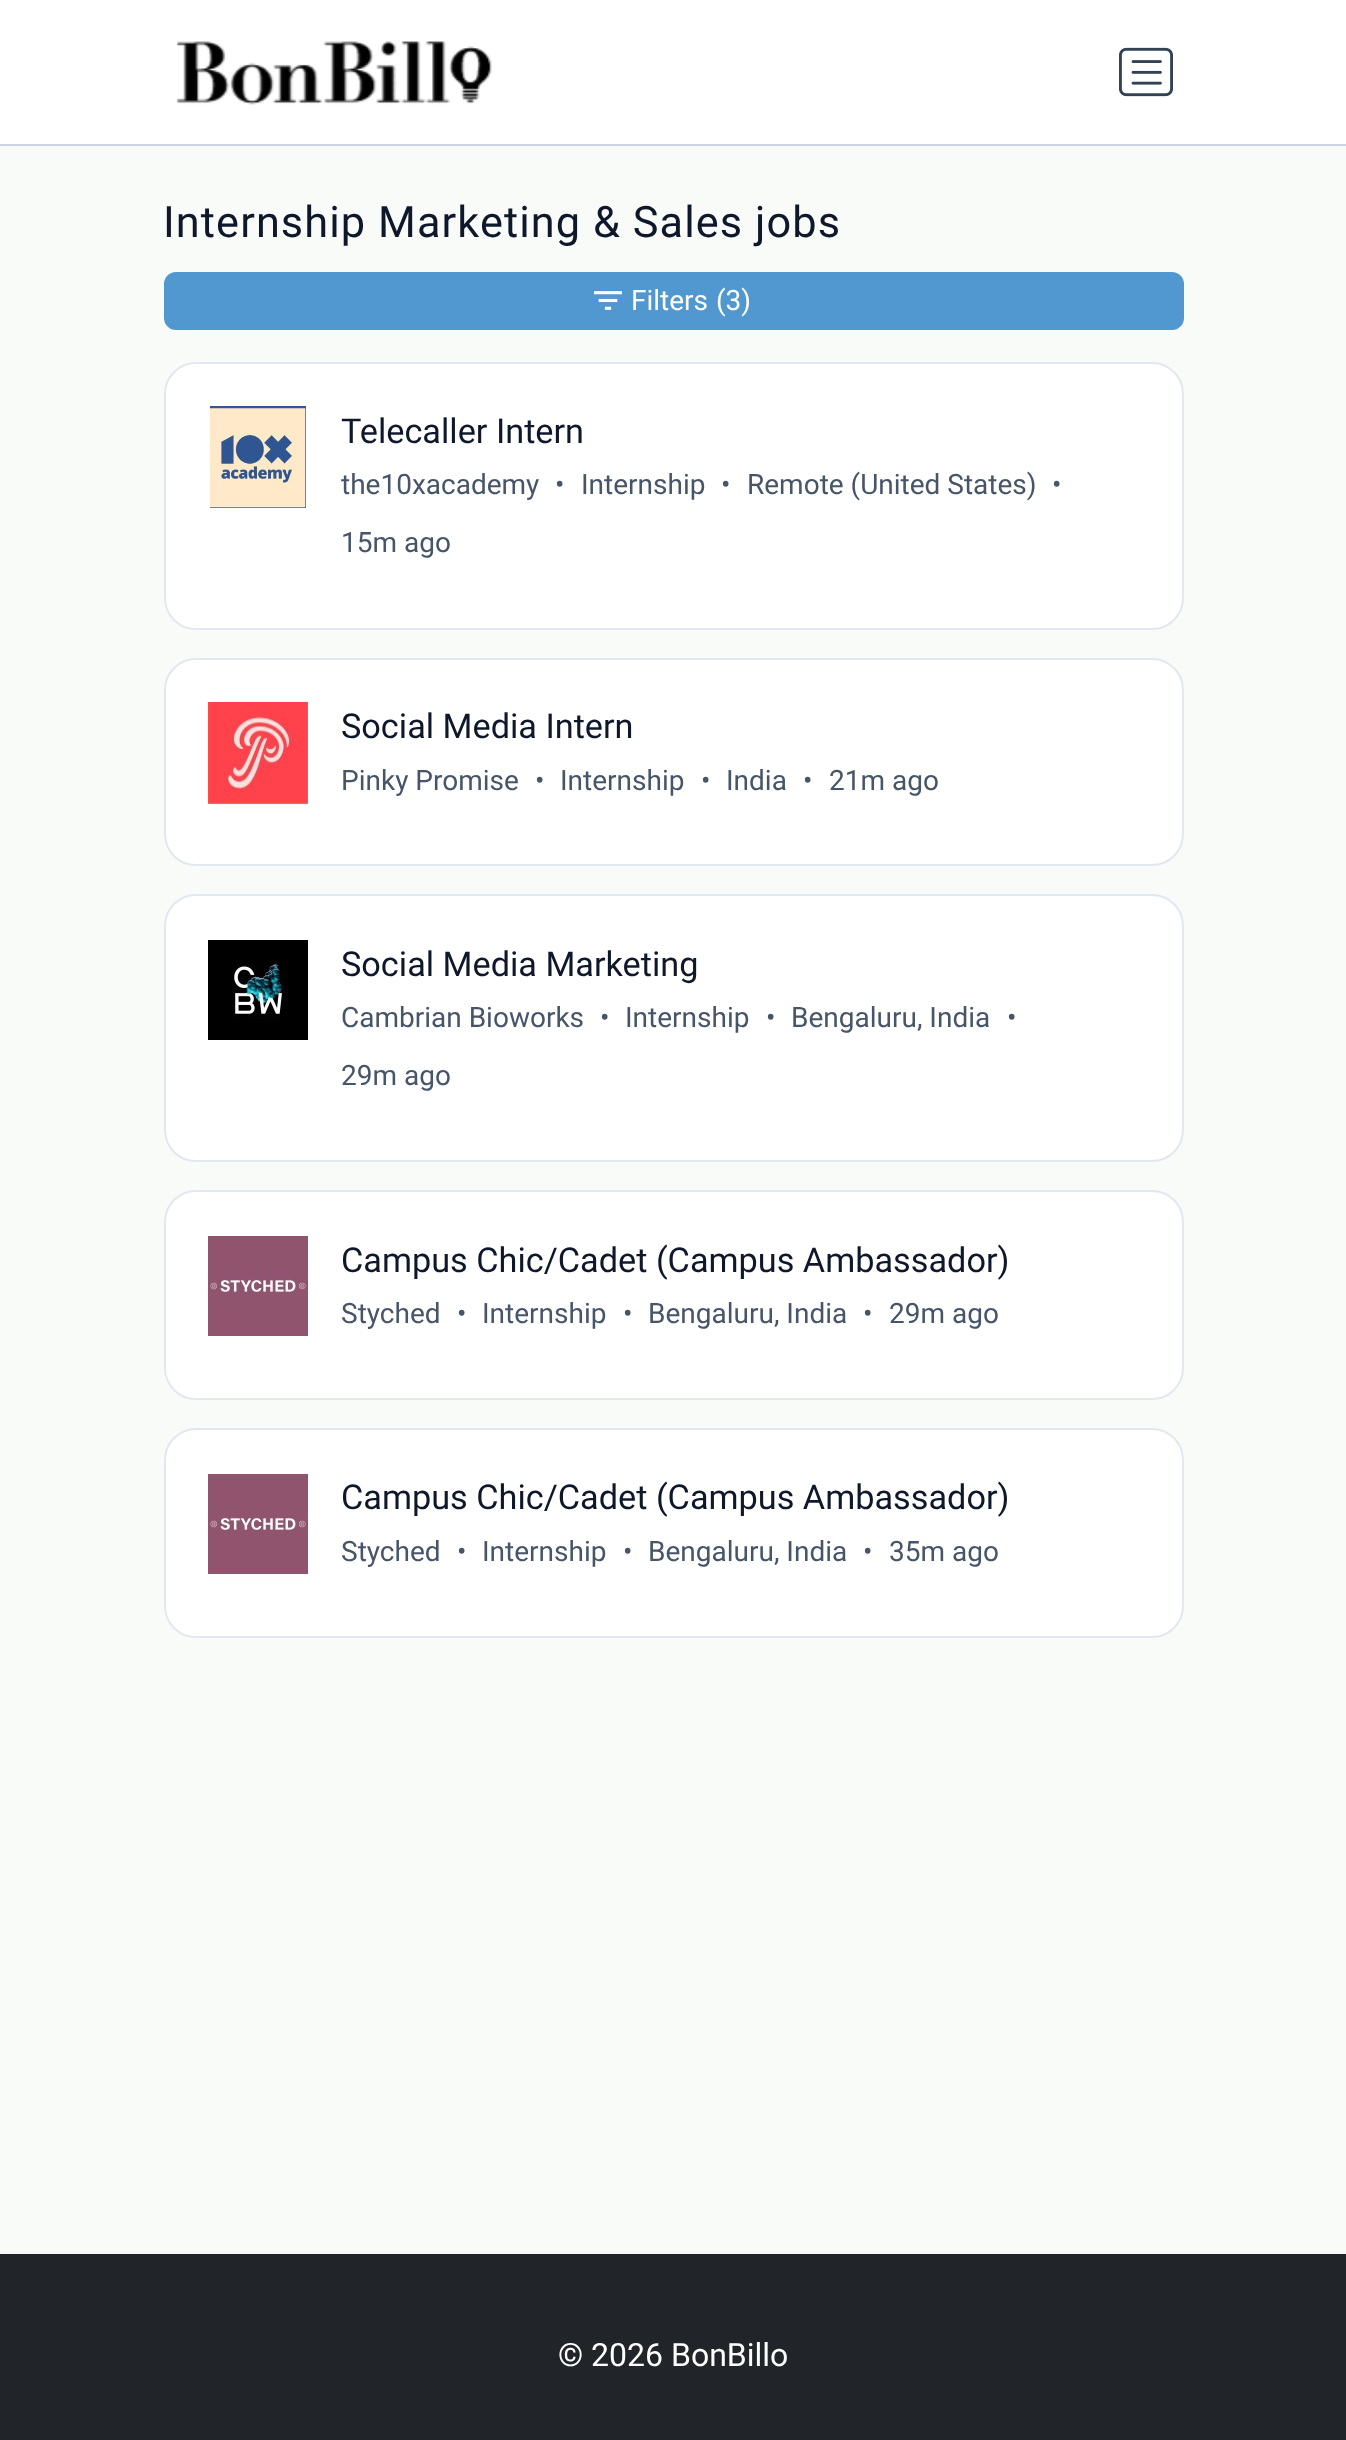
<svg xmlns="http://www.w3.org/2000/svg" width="1346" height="2440">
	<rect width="100%" height="100%" fill="#F9FBF9" />
	<rect x="0" y="0" width="1346" height="144" fill="#FFFFFF" />
	<rect x="0" y="144" width="1346" height="2" fill="#CBD5E1" />
	<image x="176" y="41" width="316" height="64" href="assets/img1.png" />
	<image x="1119" y="47" width="54" height="50" href="assets/img2.png" />
	<text x="163" y="237" font-family="Roboto" font-size="43.25" letter-spacing="1.1" fill="#0F172A">Internship Marketing &amp; Sales jobs</text>
	<rect x="165" y="273" width="1018" height="56" rx="11" fill="#5098CF" stroke="#5098CF" stroke-width="2" />
	<image x="594" y="291" width="28" height="19" href="assets/img3.png" />
	<g font-family="Roboto" font-size="28" fill="#FFFFFF">
		<text x="631" y="310">Filters</text>
		<text x="716" y="310">(3)</text>
	</g>
	<rect x="165" y="363" width="1018" height="266" rx="31" fill="#FFFFFF" stroke="#E2E8F0" stroke-width="2" />
	<image x="210" y="406" width="96" height="102" href="assets/img4.png" />
	<text x="341" y="443" font-family="Roboto" font-size="34.25" fill="#0F172A">Telecaller Intern</text>
	<g font-family="Roboto" font-size="28" fill="#475569">
		<text x="341" y="494">the10xacademy</text>
		<text x="555" y="494">•</text>
		<text x="581" y="494">Internship</text>
		<text x="721" y="494">•</text>
		<text x="747" y="494">Remote (United States)</text>
		<text x="1052" y="494">•</text>
		<text x="341" y="552">15m ago</text>
	</g>
	<rect x="165" y="659" width="1018" height="206" rx="31" fill="#FFFFFF" stroke="#E2E8F0" stroke-width="2" />
	<image x="208" y="702" width="100" height="102" href="assets/img5.png" />
	<text x="341" y="738" font-family="Roboto" font-size="34.25" fill="#0F172A">Social Media Intern</text>
	<g font-family="Roboto" font-size="28" fill="#475569">
		<text x="341" y="790">Pinky Promise</text>
		<text x="535" y="790">•</text>
		<text x="560" y="790">Internship</text>
		<text x="701" y="790">•</text>
		<text x="726" y="790">India</text>
		<text x="803" y="790">•</text>
		<text x="829" y="790">21m ago</text>
	</g>
	<rect x="165" y="895" width="1018" height="266" rx="31" fill="#FFFFFF" stroke="#E2E8F0" stroke-width="2" />
	<image x="208" y="940" width="100" height="100" href="assets/img6.png" />
	<text x="341" y="976" font-family="Roboto" font-size="34.25" fill="#0F172A">Social Media Marketing</text>
	<g font-family="Roboto" font-size="28" fill="#475569">
		<text x="341" y="1027">Cambrian Bioworks</text>
		<text x="600" y="1027">•</text>
		<text x="625" y="1027">Internship</text>
		<text x="766" y="1027">•</text>
		<text x="791" y="1027">Bengaluru, India</text>
		<text x="1007" y="1027">•</text>
		<text x="341" y="1085">29m ago</text>
	</g>
	<rect x="165" y="1191" width="1018" height="208" rx="31" fill="#FFFFFF" stroke="#E2E8F0" stroke-width="2" />
	<image x="208" y="1236" width="100" height="100" href="assets/img7.png" />
	<text x="341" y="1272" font-family="Roboto" font-size="34.25" fill="#0F172A">Campus Chic/Cadet (Campus Ambassador)</text>
	<g font-family="Roboto" font-size="28" fill="#475569">
		<text x="341" y="1323">Styched</text>
		<text x="457" y="1323">•</text>
		<text x="482" y="1323">Internship</text>
		<text x="623" y="1323">•</text>
		<text x="648" y="1323">Bengaluru, India</text>
		<text x="863" y="1323">•</text>
		<text x="889" y="1323">29m ago</text>
	</g>
	<rect x="165" y="1429" width="1018" height="208" rx="31" fill="#FFFFFF" stroke="#E2E8F0" stroke-width="2" />
	<image x="208" y="1474" width="100" height="100" href="assets/img7.png" />
	<text x="341" y="1509" font-family="Roboto" font-size="34.25" fill="#0F172A">Campus Chic/Cadet (Campus Ambassador)</text>
	<g font-family="Roboto" font-size="28" fill="#475569">
		<text x="341" y="1561">Styched</text>
		<text x="457" y="1561">•</text>
		<text x="482" y="1561">Internship</text>
		<text x="623" y="1561">•</text>
		<text x="648" y="1561">Bengaluru, India</text>
		<text x="863" y="1561">•</text>
		<text x="889" y="1561">35m ago</text>
	</g>
	<rect x="0" y="2254" width="1346" height="186" fill="#212529" />
	<text x="558" y="2366" font-family="Roboto" font-size="32" fill="#FFFFFF">© 2026 BonBillo</text>
</svg>
